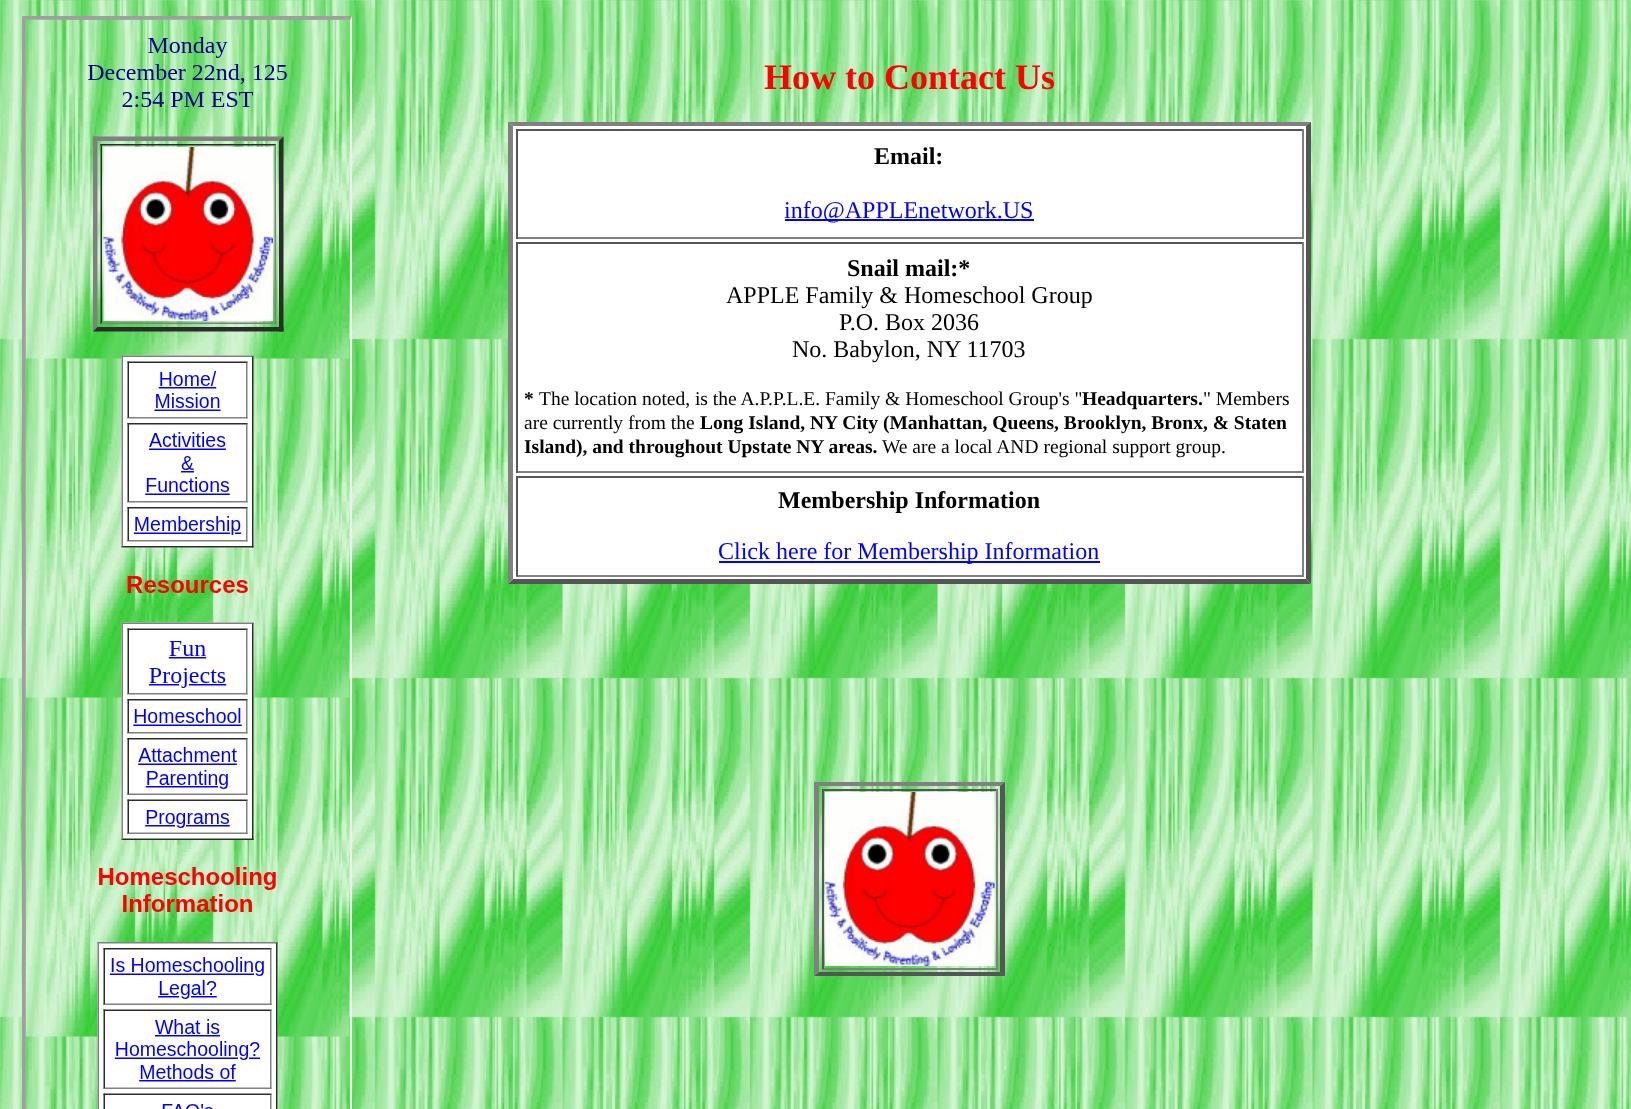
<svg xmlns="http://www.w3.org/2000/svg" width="1631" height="1109">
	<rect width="100%" height="100%" fill="#FFFFFF" />
	<image x="0" y="0" width="1631" height="1109" href="assets/img1.png" />
	<path d="M22 16H352L350 20H26Z" fill="#9F9F9F" />
	<path d="M22 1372V16L26 20V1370Z" fill="#9F9F9F" />
	<image x="25" y="19" width="325" height="1090" href="assets/img2.png" />
	<path d="M352 16V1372L350 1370V20Z" fill="#EEEEEE" />
	<text x="764" y="89" font-family="Liberation Serif" font-size="36" font-weight="700" fill="#FF0000">How to Contact Us</text>
	<rect x="509" y="122" width="802" height="462" fill="#FFFFFF" />
	<path d="M508 122H1311L1306 126H513Z" fill="#808080" />
	<path d="M1311 122V584L1306 579V126Z" fill="#555555" />
	<path d="M1311 584H508L513 579H1306Z" fill="#555555" />
	<path d="M508 584V122L513 126V579Z" fill="#808080" />
	<rect x="516" y="129" width="788" height="2" fill="#555555" />
	<rect x="1302" y="129" width="2" height="110" fill="#808080" />
	<rect x="516" y="237" width="788" height="2" fill="#808080" />
	<rect x="516" y="129" width="2" height="110" fill="#555555" />
	<text x="874" y="164" font-family="Liberation Serif" font-size="24" font-weight="700" fill="#000000">Email:</text>
	<rect x="785" y="219" width="249" height="2" fill="#0000FF" />
	<text x="784" y="218" font-family="Liberation Serif" font-size="24" fill="#0000FF">info@APPLEnetwork.US</text>
	<rect x="516" y="242" width="788" height="2" fill="#555555" />
	<rect x="1302" y="242" width="2" height="231" fill="#808080" />
	<rect x="516" y="471" width="788" height="2" fill="#808080" />
	<rect x="516" y="242" width="2" height="231" fill="#555555" />
	<text x="847" y="276" font-family="Liberation Serif" font-size="24" font-weight="700" fill="#000000">Snail mail:*</text>
	<g font-family="Liberation Serif" font-size="24" fill="#000000">
		<text x="726" y="303">APPLE Family &amp; Homeschool Group</text>
		<text x="839" y="330">P.O. Box 2036</text>
		<text x="792" y="357">No. Babylon, NY 11703</text>
	</g>
	<text x="524" y="405" font-family="Liberation Serif" font-size="19.5" font-weight="700" fill="#000000">*</text>
	<text x="539" y="405" font-family="Liberation Serif" font-size="19.5" fill="#000000">The location noted, is the A.P.P.L.E. Family &amp; Homeschool Group's "</text>
	<text x="1082" y="405" font-family="Liberation Serif" font-size="19.5" font-weight="700" fill="#000000">Headquarters.</text>
	<g font-family="Liberation Serif" font-size="19.5" fill="#000000">
		<text x="1203" y="405">" Members</text>
		<text x="524" y="429">are currently from the</text>
	</g>
	<g font-family="Liberation Serif" font-size="19.5" font-weight="700" fill="#000000">
		<text x="700" y="429">Long Island, NY City (Manhattan, Queens, Brooklyn, Bronx, &amp; Staten</text>
		<text x="524" y="453">Island), and throughout Upstate NY areas.</text>
	</g>
	<text x="882" y="453" font-family="Liberation Serif" font-size="19.5" fill="#000000">We are a local AND regional support group.</text>
	<rect x="516" y="476" width="788" height="2" fill="#555555" />
	<rect x="1302" y="476" width="2" height="100" fill="#808080" />
	<rect x="516" y="575" width="788" height="2" fill="#808080" />
	<rect x="516" y="476" width="2" height="100" fill="#555555" />
	<text x="778" y="508" font-family="Liberation Serif" font-size="24" font-weight="700" fill="#000000">Membership Information</text>
	<rect x="719" y="561" width="381" height="2" fill="#0000FF" />
	<text x="718" y="559" font-family="Liberation Serif" font-size="24" fill="#0000FF">Click here for Membership Information</text>
	<path d="M814 782H1005L1000 786H819Z" fill="#808080" />
	<path d="M1005 782V976L1000 972V786Z" fill="#555555" />
	<path d="M1005 976H814L819 972H1000Z" fill="#555555" />
	<path d="M814 976V782L819 786V972Z" fill="#808080" />
	<rect x="822" y="789" width="176" height="2" fill="#555555" />
	<rect x="996" y="789" width="2" height="180" fill="#808080" />
	<rect x="822" y="968" width="176" height="2" fill="#808080" />
	<rect x="822" y="789" width="2" height="180" fill="#555555" />
	<image x="825" y="792" width="170" height="174" href="assets/img3.png" />
</svg>
